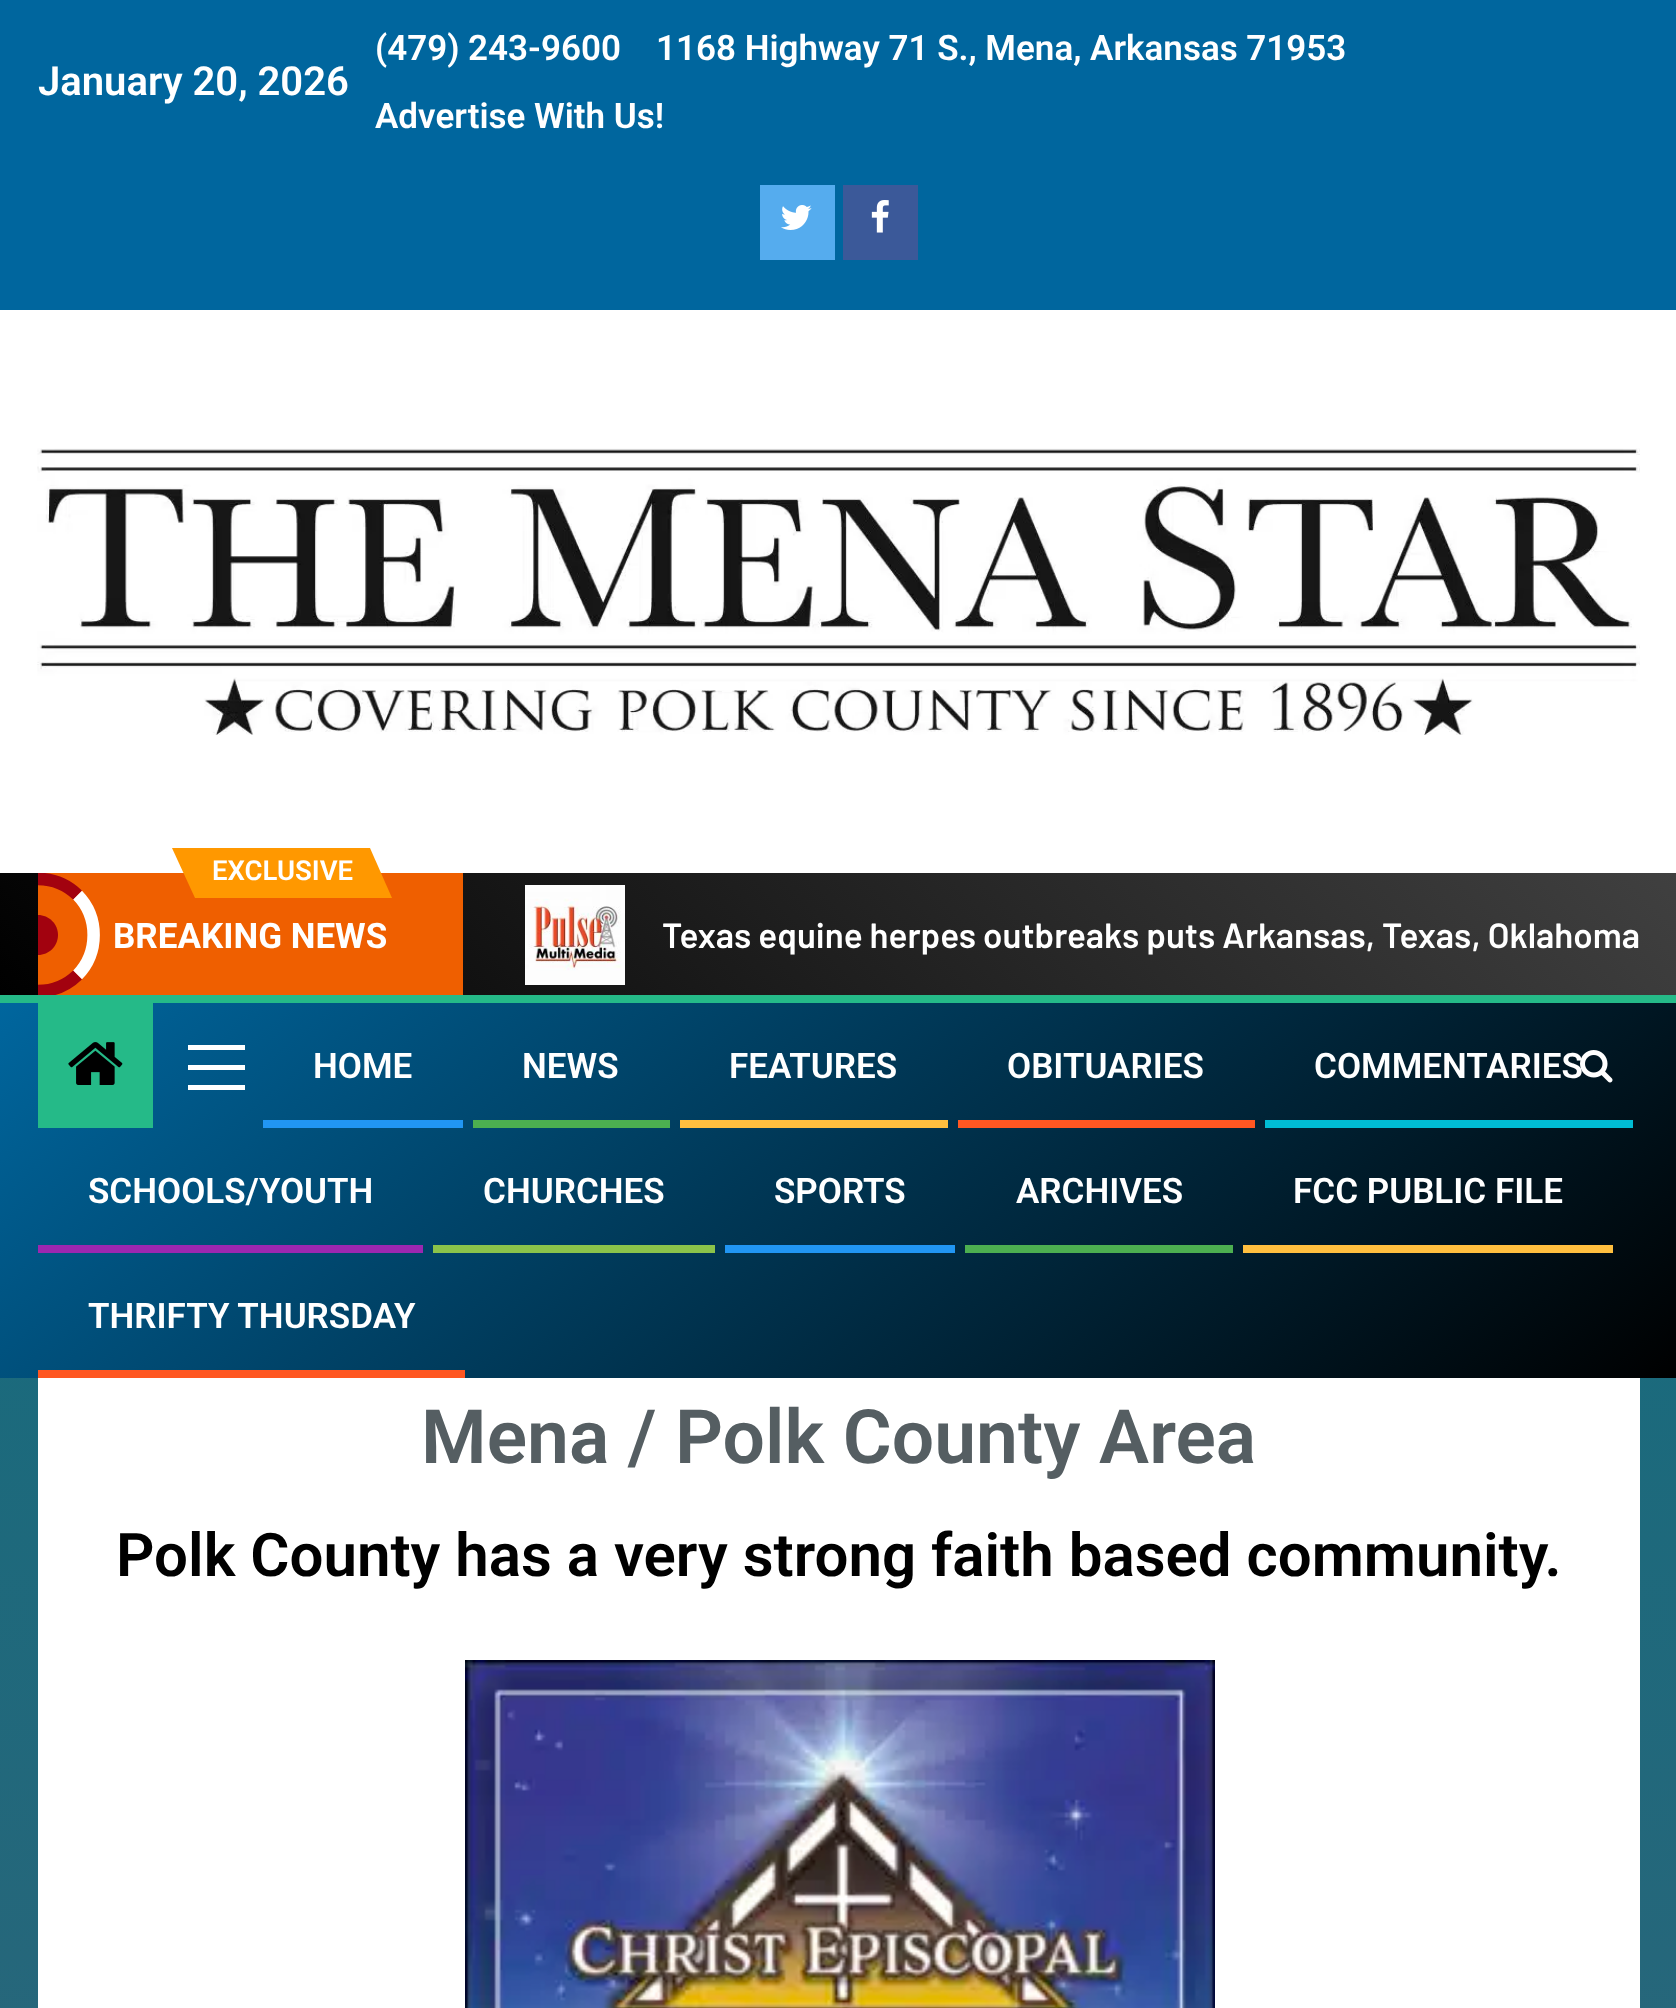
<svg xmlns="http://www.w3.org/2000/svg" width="1676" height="2008">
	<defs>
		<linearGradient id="g1" gradientUnits="userSpaceOnUse" x1="839" y1="0" x2="839" y2="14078"><stop offset="0" stop-color="#047180" /><stop offset="1" stop-color="#F2295B" /></linearGradient>
		<linearGradient id="g2" gradientUnits="userSpaceOnUse" x1="389" y1="1384" x2="1289" y2="484"><stop offset="0" stop-color="#000000" /><stop offset="1" stop-color="#404040" /></linearGradient>
		<clipPath id="clip1"><rect x="38" y="873" width="425" height="122" /></clipPath>
		<linearGradient id="g3" gradientUnits="userSpaceOnUse" x1="400" y1="667" x2="1278" y2="1713"><stop offset="0" stop-color="#00669E" /><stop offset="1" stop-color="#000000" /></linearGradient>
	</defs>
	<rect width="100%" height="100%" fill="#FFFFFF" />
	<rect x="0" y="1378" width="1676" height="630" fill="url(#g1)" />
	<rect x="0" y="0" width="1676" height="310" fill="#00669E" />
	<text x="38" y="95" font-family="Roboto" font-size="40" font-weight="600" fill="#FFFFFF">January 20, 2026</text>
	<g font-family="Roboto" font-size="35" font-weight="600" fill="#FFFFFF">
		<text x="375" y="60">(479) 243-9600</text>
		<text x="656" y="60">1168 Highway 71 S., Mena, Arkansas 71953</text>
		<text x="375" y="128">Advertise With Us!</text>
	</g>
	<rect x="760" y="185" width="75" height="75" fill="#55ACEE" />
	<image x="781" y="205" width="31" height="25" href="assets/img1.png" />
	<rect x="843" y="185" width="75" height="75" fill="#3B5999" />
	<image x="871" y="200" width="18" height="33" href="assets/img2.png" />
	<image x="37" y="448" width="1603" height="287" href="assets/img3.png" />
	<rect x="0" y="873" width="1676" height="122" fill="url(#g2)" />
	<rect x="38" y="873" width="425" height="122" fill="#EF5F00" />
	<rect x="195" y="848" width="175" height="50" fill="#FF9800" />
	<path d="M172 848H195V898Z" fill="#FF9800" />
	<text x="212" y="880" font-family="Roboto" font-size="27.5" font-weight="600" fill="#FFFFFF">EXCLUSIVE</text>
	<path d="M392 898H370V848Z" fill="#FF9800" />
	<path d="M77.5 895C99 917 99 953 77.5 975" fill="none" stroke="#FFFFFF" stroke-width="12.5" />
	<g clip-path="url(#clip1)">
		<path d="M-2.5 895C19.5 873.5 55.5 873.5 77.5 895" fill="none" stroke="#A2020F" stroke-width="12.5" />
		<path d="M77.5 975C55.5 996.5 19.5 996.5-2.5 975" fill="none" stroke="#A2020F" stroke-width="12.5" />
	</g>
	<path d="M38 915C49 915 58 924 58 935C58 946 49 955 38 955Z" fill="#A2020F" />
	<text x="113" y="948" font-family="Roboto" font-size="35" font-weight="700" fill="#FFFFFF">BREAKING NEWS</text>
	<image x="525" y="885" width="100" height="100" href="assets/img4.png" />
	<text x="662" y="948" font-family="Barlow" font-size="35" font-weight="600" fill="#FFFFFF">Texas equine herpes outbreaks puts Arkansas, Texas, Oklahoma</text>
	<rect x="0" y="1003" width="1676" height="375" fill="url(#g3)" />
	<rect x="0" y="995" width="1676" height="8" fill="#25BA88" />
	<rect x="38" y="1003" width="115" height="125" fill="#25BA88" />
	<image x="68" y="1042" width="55" height="43" href="assets/img5.png" />
	<rect x="188" y="1065" width="57" height="5" fill="#FFFFFF" />
	<rect x="188" y="1045" width="57" height="5" fill="#FFFFFF" />
	<rect x="188" y="1085" width="57" height="5" fill="#FFFFFF" />
	<text x="313" y="1078" font-family="Roboto" font-size="35" font-weight="600" fill="#FFFFFF">HOME</text>
	<rect x="263" y="1120" width="200" height="8" fill="#2196F3" />
	<text x="522" y="1078" font-family="Roboto" font-size="35" font-weight="600" fill="#FFFFFF">NEWS</text>
	<rect x="473" y="1120" width="197" height="8" fill="#4CAF50" />
	<text x="729" y="1078" font-family="Roboto" font-size="35" font-weight="600" fill="#FFFFFF">FEATURES</text>
	<rect x="680" y="1120" width="268" height="8" fill="#FFBF3F" />
	<text x="1007" y="1078" font-family="Roboto" font-size="35" font-weight="600" fill="#FFFFFF">OBITUARIES</text>
	<rect x="958" y="1120" width="297" height="8" fill="#FF5722" />
	<text x="1314" y="1078" font-family="Roboto" font-size="35" font-weight="600" fill="#FFFFFF">COMMENTARIES</text>
	<rect x="1265" y="1120" width="368" height="8" fill="#00BCD4" />
	<text x="88" y="1203" font-family="Roboto" font-size="35" font-weight="600" fill="#FFFFFF">SCHOOLS/YOUTH</text>
	<rect x="38" y="1245" width="385" height="8" fill="#9C27B0" />
	<text x="483" y="1203" font-family="Roboto" font-size="35" font-weight="600" fill="#FFFFFF">CHURCHES</text>
	<rect x="433" y="1245" width="282" height="8" fill="#8BC34A" />
	<text x="774" y="1203" font-family="Roboto" font-size="35" font-weight="600" fill="#FFFFFF">SPORTS</text>
	<rect x="725" y="1245" width="230" height="8" fill="#2196F3" />
	<text x="1016" y="1203" font-family="Roboto" font-size="35" font-weight="600" fill="#FFFFFF">ARCHIVES</text>
	<rect x="965" y="1245" width="268" height="8" fill="#4CAF50" />
	<text x="1293" y="1203" font-family="Roboto" font-size="35" font-weight="600" fill="#FFFFFF">FCC PUBLIC FILE</text>
	<rect x="1243" y="1245" width="370" height="8" fill="#FFBF3F" />
	<text x="88" y="1328" font-family="Roboto" font-size="35" font-weight="600" fill="#FFFFFF">THRIFTY THURSDAY</text>
	<rect x="38" y="1370" width="427" height="8" fill="#FF5722" />
	<image x="1580" y="1050" width="33" height="33" href="assets/img6.png" />
	<rect x="38" y="1378" width="1602" height="630" fill="#FFFFFF" />
	<text x="421" y="1463" font-family="Roboto" font-size="75" font-weight="600" fill="#555E62">Mena / Polk County Area</text>
	<text x="116" y="1576" font-family="Roboto" font-size="60" font-weight="600" fill="#000000">Polk County has a very strong faith based community.</text>
	<image x="465" y="1660" width="750" height="348" href="assets/img7.png" />
</svg>
